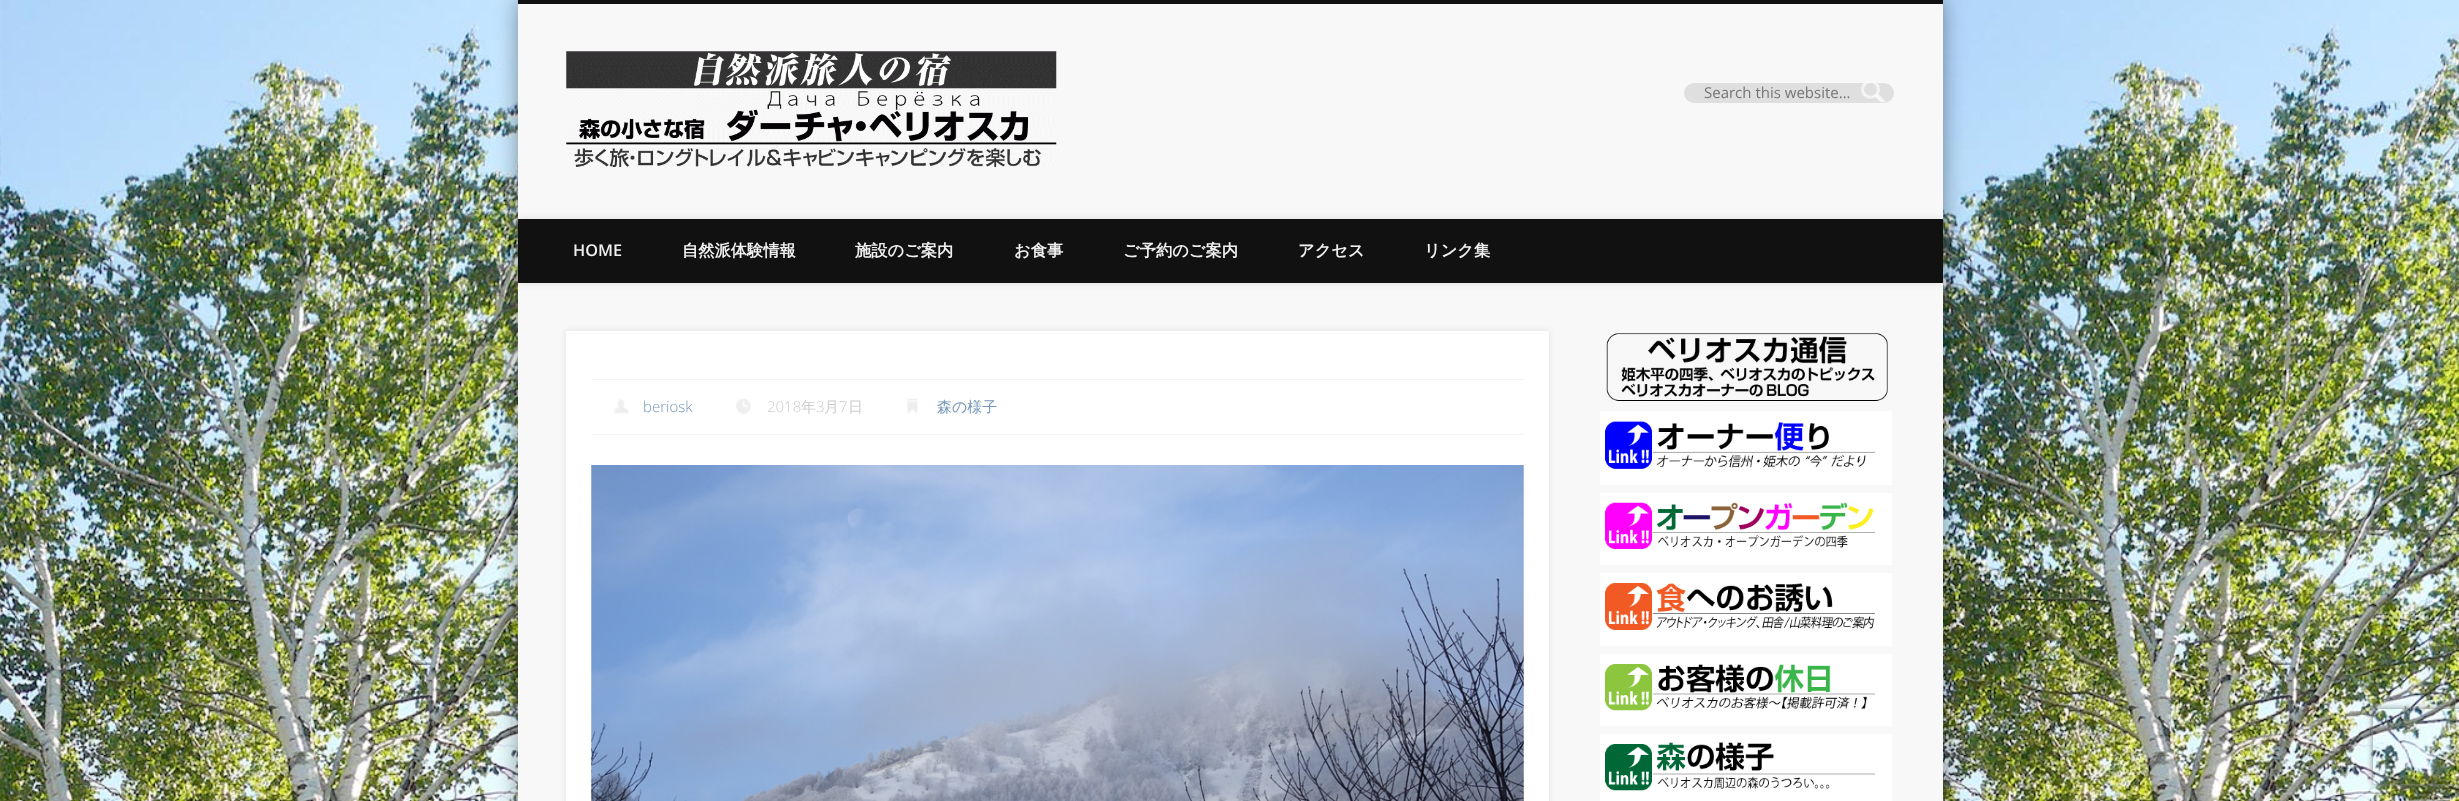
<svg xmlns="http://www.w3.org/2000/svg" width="2459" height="801">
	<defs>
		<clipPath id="clip1"><rect x="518" y="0" width="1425" height="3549" /></clipPath>
		<clipPath id="clip2"><path d="M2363 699H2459V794H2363ZM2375.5 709H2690.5C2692 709 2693 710 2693 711.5V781.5C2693 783 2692 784 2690.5 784H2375.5C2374 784 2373 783 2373 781.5V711.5C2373 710 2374 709 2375.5 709Z" clip-rule="evenodd" /></clipPath>
	</defs>
	<rect width="100%" height="100%" fill="#FFFFFF" />
	<image x="0" y="0" width="2459" height="801" href="assets/img1.png" />
	<rect x="518" y="0" width="1425" height="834" fill="#000000" fill-opacity="0.4" filter="blur(11px)" />
	<rect x="518" y="4" width="1425" height="797" fill="#F8F8F8" />
	<rect x="518" y="0" width="1425" height="4" fill="#111111" />
	<image x="566" y="51" width="491" height="116" href="assets/img2.png" />
	<rect x="1684" y="83" width="210" height="20" rx="10" fill="#DFDFDF" />
	<image x="1861" y="83" width="25" height="20" href="assets/img3.png" />
	<text x="1704" y="98" font-family="Open Sans" font-size="15" fill="#757575">Search this website…</text>
	<g clip-path="url(#clip1)">
		<rect x="518" y="219" width="1425" height="64" fill="#000000" fill-opacity="0.1" filter="blur(4.5px)" />
	</g>
	<rect x="518" y="219" width="1425" height="64" fill="#111111" />
	<text x="573" y="256" font-family="Open Sans" font-size="16.25" font-weight="600" fill="#F0F0F0">HOME</text>
	<g font-family="WenQuanYi Zen Hei" font-size="16.25" font-weight="700" fill="#F0F0F0">
		<text x="682" y="256">自然派体験情報</text>
		<text x="855" y="256">施設のご案内</text>
		<text x="1014" y="256">お食事</text>
		<text x="1123" y="256">ご予約のご案内</text>
		<text x="1298" y="256">アクセス</text>
		<text x="1424" y="256">リンク集</text>
	</g>
	<rect x="566" y="331" width="983" height="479" fill="#000000" fill-opacity="0.1" filter="blur(3px)" />
	<rect x="566" y="331" width="983" height="470" fill="#FFFFFF" />
	<rect x="591" y="379" width="933" height="1" fill="#F4F4F4" />
	<rect x="591" y="434" width="933" height="1" fill="#F4F4F4" />
	<image x="614" y="399" width="15" height="15" href="assets/img4.png" />
	<text x="643" y="412" font-family="Open Sans" font-size="15" font-weight="300" fill="#7597B9">beriosk</text>
	<image x="736" y="398" width="15" height="16" href="assets/img5.png" />
	<text x="767" y="412" font-family="Open Sans" font-size="15" font-weight="300" fill="#CCCCCC">2018</text>
	<text x="801" y="412" font-family="WenQuanYi Zen Hei" font-size="15" font-weight="500" fill="#CCCCCC">年</text>
	<text x="816" y="412" font-family="Open Sans" font-size="15" font-weight="300" fill="#CCCCCC">3</text>
	<text x="824" y="412" font-family="WenQuanYi Zen Hei" font-size="15" font-weight="500" fill="#CCCCCC">月</text>
	<text x="839" y="412" font-family="Open Sans" font-size="15" font-weight="300" fill="#CCCCCC">7</text>
	<text x="848" y="412" font-family="WenQuanYi Zen Hei" font-size="15" font-weight="500" fill="#CCCCCC">日</text>
	<image x="907" y="398" width="11" height="16" href="assets/img6.png" />
	<text x="937" y="412" font-family="WenQuanYi Zen Hei" font-size="15" font-weight="500" fill="#7597B9">森の様子</text>
	<image x="591" y="465" width="933" height="336" href="assets/img7.png" />
	<image x="1606" y="333" width="283" height="68" href="assets/img8.png" />
	<image x="1600" y="411" width="292" height="74" href="assets/img9.png" />
	<image x="1600" y="493" width="292" height="72" href="assets/img10.png" />
	<image x="1600" y="573" width="292" height="73" href="assets/img11.png" />
	<image x="1600" y="654" width="292" height="72" href="assets/img12.png" />
	<image x="1600" y="734" width="292" height="67" href="assets/img13.png" />
	<g clip-path="url(#clip2)">
		<rect x="2373" y="709" width="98" height="75" rx="2.5" fill="#808080" filter="blur(3px)" />
	</g>
</svg>
